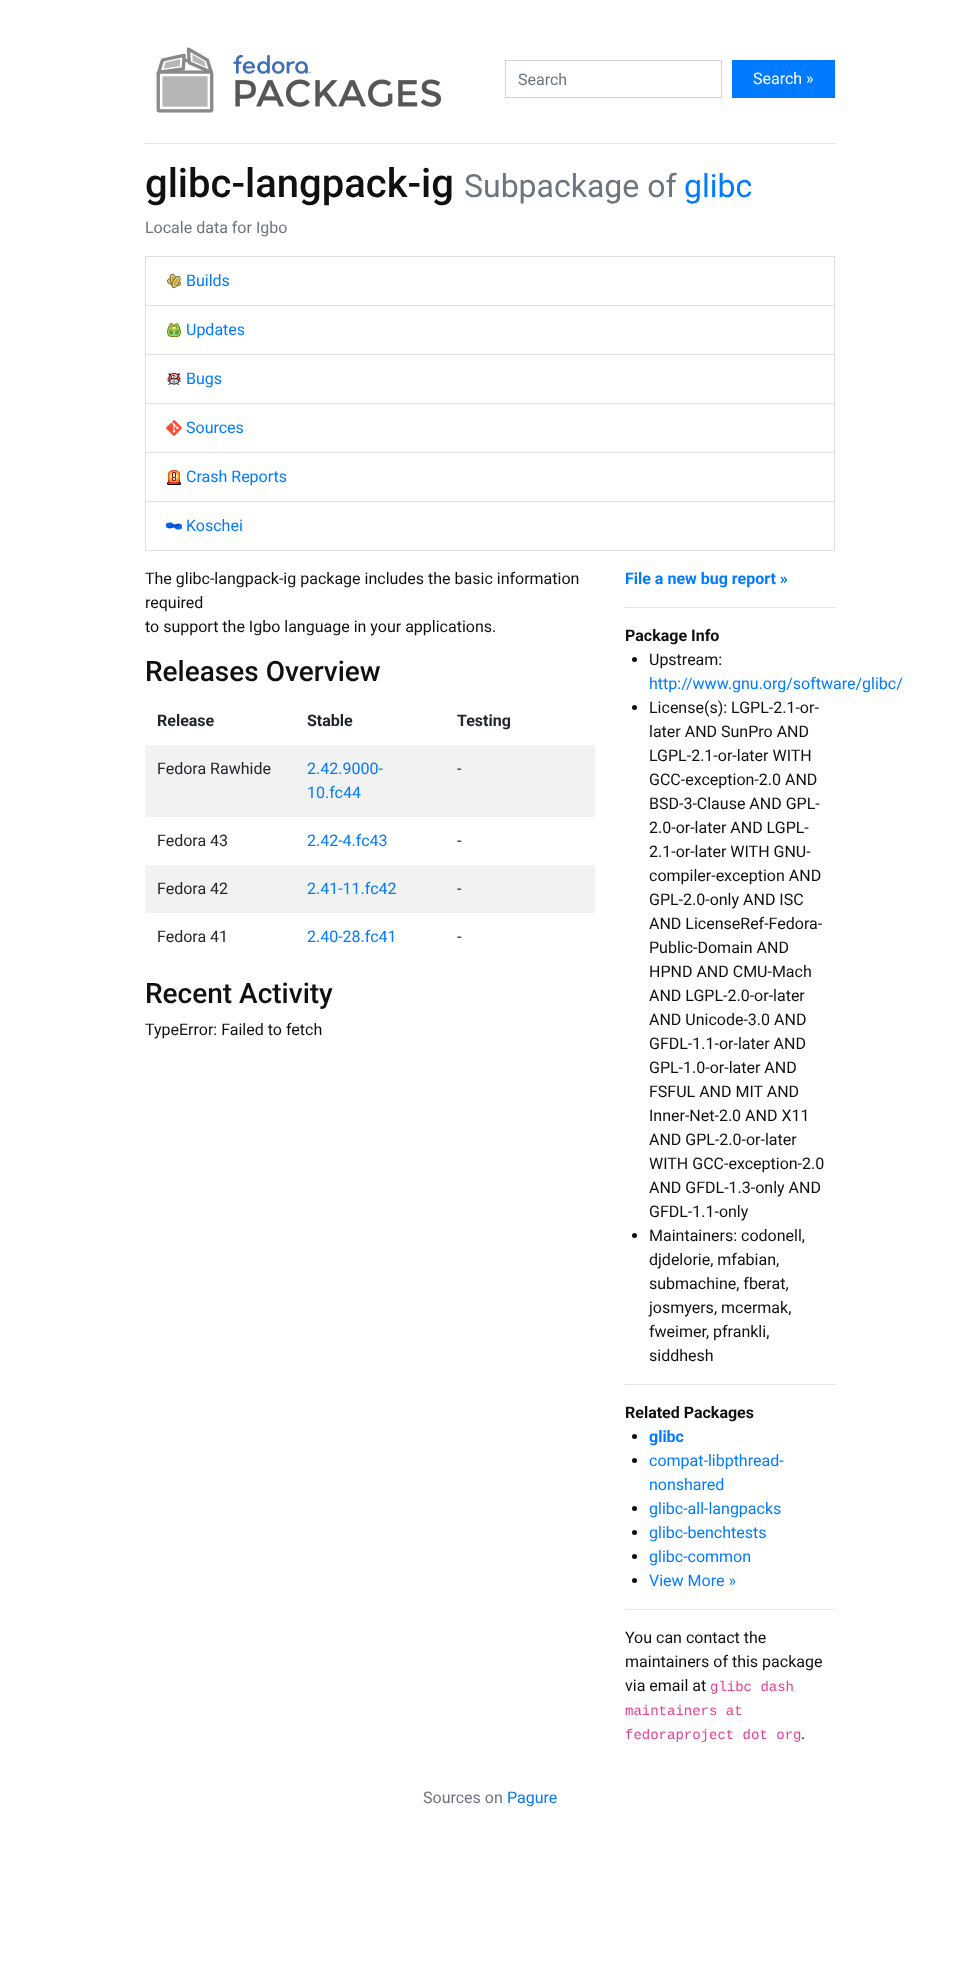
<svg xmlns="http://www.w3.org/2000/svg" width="980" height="1988">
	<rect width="100%" height="100%" fill="#FFFFFF" />
	<image x="156" y="47" width="285" height="66" href="assets/img1.png" />
	<rect x="505.5" y="60.5" width="216" height="37" fill="none" stroke="#CED4DA" />
	<text x="518" y="85" font-family="Roboto" font-size="16" fill="#6C757D">Search</text>
	<rect x="732" y="60" width="103" height="38" fill="#007BFF" />
	<text x="753" y="84" font-family="Roboto" font-size="16" fill="#FFFFFF">Search »</text>
	<rect x="145" y="143" width="690" height="1" fill="#E6E6E6" />
	<text x="145" y="197" font-family="Roboto" font-size="40" font-weight="500" fill="#101010">glibc-langpack-ig</text>
	<text x="464" y="197" font-family="Roboto" font-size="32" fill="#6C757D">Subpackage of</text>
	<text x="684" y="197" font-family="Roboto" font-size="32" fill="#007BFF">glibc</text>
	<text x="145" y="233" font-family="Roboto" font-size="16" fill="#6C757D">Locale data for Igbo</text>
	<rect x="145.5" y="256.5" width="689" height="49" fill="none" stroke="#DFDFDF" />
	<image x="166" y="273" width="15" height="15" href="assets/img2.png" />
	<text x="186" y="286" font-family="Roboto" font-size="16" fill="#007BFF">Builds</text>
	<path d="M835 306V355L834 354V306Z" fill="#DFDFDF" />
	<path d="M835 355H145L146 354H834Z" fill="#000000" fill-opacity="0.12" />
	<path d="M145 355V306H146V354Z" fill="#000000" fill-opacity="0.12" />
	<image x="167" y="323" width="14" height="14" href="assets/img3.png" />
	<text x="186" y="335" font-family="Roboto" font-size="16" fill="#007BFF">Updates</text>
	<path d="M835 355V404L834 403V355Z" fill="#DFDFDF" />
	<path d="M835 404H145L146 403H834Z" fill="#000000" fill-opacity="0.12" />
	<path d="M145 404V355H146V403Z" fill="#000000" fill-opacity="0.12" />
	<image x="167" y="372" width="14" height="14" href="assets/img4.png" />
	<text x="186" y="384" font-family="Roboto" font-size="16" fill="#007BFF">Bugs</text>
	<path d="M835 404V453L834 452V404Z" fill="#DFDFDF" />
	<path d="M835 453H145L146 452H834Z" fill="#000000" fill-opacity="0.12" />
	<path d="M145 453V404H146V452Z" fill="#000000" fill-opacity="0.12" />
	<image x="166" y="420" width="16" height="16" href="assets/img5.png" />
	<text x="186" y="433" font-family="Roboto" font-size="16" fill="#007BFF">Sources</text>
	<path d="M835 453V502L834 501V453Z" fill="#DFDFDF" />
	<path d="M835 502H145L146 501H834Z" fill="#000000" fill-opacity="0.12" />
	<path d="M145 502V453H146V501Z" fill="#000000" fill-opacity="0.12" />
	<image x="166" y="469" width="16" height="16" href="assets/img6.png" />
	<text x="186" y="482" font-family="Roboto" font-size="16" fill="#007BFF">Crash Reports</text>
	<path d="M835 502V551L834 550V502Z" fill="#DFDFDF" />
	<path d="M835 551H145L146 550H834Z" fill="#000000" fill-opacity="0.12" />
	<path d="M145 551V502H146V550Z" fill="#000000" fill-opacity="0.12" />
	<image x="166" y="522" width="16" height="8" href="assets/img7.png" />
	<text x="186" y="531" font-family="Roboto" font-size="16" fill="#007BFF">Koschei</text>
	<g font-family="Roboto" font-size="16" fill="#101010">
		<text x="145" y="584">The glibc-langpack-ig package includes the basic information</text>
		<text x="145" y="608">required</text>
		<text x="145" y="632">to support the Igbo language in your applications.</text>
	</g>
	<text x="145" y="681" font-family="Roboto" font-size="28" font-weight="500" fill="#101010">Releases Overview</text>
	<g font-family="Roboto" font-size="16" font-weight="700" fill="#212529">
		<text x="157" y="726">Release</text>
		<text x="307" y="726">Stable</text>
		<text x="457" y="726">Testing</text>
	</g>
	<rect x="145" y="745" width="450" height="72" fill="#F2F2F2" />
	<text x="157" y="774" font-family="Roboto" font-size="16" fill="#212529">Fedora Rawhide</text>
	<g font-family="Roboto" font-size="16" fill="#007BFF">
		<text x="307" y="774">2.42.9000-</text>
		<text x="307" y="798">10.fc44</text>
	</g>
	<g font-family="Roboto" font-size="16" fill="#212529">
		<text x="457" y="774">-</text>
		<text x="157" y="846">Fedora 43</text>
	</g>
	<text x="307" y="846" font-family="Roboto" font-size="16" fill="#007BFF">2.42-4.fc43</text>
	<text x="457" y="846" font-family="Roboto" font-size="16" fill="#212529">-</text>
	<rect x="145" y="865" width="450" height="48" fill="#F2F2F2" />
	<text x="157" y="894" font-family="Roboto" font-size="16" fill="#212529">Fedora 42</text>
	<text x="307" y="894" font-family="Roboto" font-size="16" fill="#007BFF">2.41-11.fc42</text>
	<g font-family="Roboto" font-size="16" fill="#212529">
		<text x="457" y="894">-</text>
		<text x="157" y="942">Fedora 41</text>
	</g>
	<text x="307" y="942" font-family="Roboto" font-size="16" fill="#007BFF">2.40-28.fc41</text>
	<text x="457" y="942" font-family="Roboto" font-size="16" fill="#212529">-</text>
	<text x="145" y="1003" font-family="Roboto" font-size="28" font-weight="500" fill="#101010">Recent Activity</text>
	<text x="145" y="1035" font-family="Roboto" font-size="16" fill="#101010">TypeError: Failed to fetch</text>
	<text x="625" y="584" font-family="Roboto" font-size="16" font-weight="700" fill="#007BFF">File a new bug report »</text>
	<rect x="625" y="607" width="210" height="1" fill="#E6E6E6" />
	<text x="625" y="641" font-family="Roboto" font-size="16" font-weight="700" fill="#101010">Package Info</text>
	<circle cx="634.5" cy="659.5" r="2.5" fill="#101010" />
	<text x="649" y="665" font-family="Roboto" font-size="16" fill="#101010">Upstream:</text>
	<text x="649" y="689" font-family="Roboto" font-size="16" fill="#007BFF">http://www.gnu.org/software/glibc/</text>
	<circle cx="634.5" cy="707.5" r="2.5" fill="#101010" />
	<g font-family="Roboto" font-size="16" fill="#101010">
		<text x="649" y="713">License(s): LGPL-2.1-or-</text>
		<text x="649" y="737">later AND SunPro AND</text>
		<text x="649" y="761">LGPL-2.1-or-later WITH</text>
		<text x="649" y="785">GCC-exception-2.0 AND</text>
		<text x="649" y="809">BSD-3-Clause AND GPL-</text>
		<text x="649" y="833">2.0-or-later AND LGPL-</text>
		<text x="649" y="857">2.1-or-later WITH GNU-</text>
		<text x="649" y="881">compiler-exception AND</text>
		<text x="649" y="905">GPL-2.0-only AND ISC</text>
		<text x="649" y="929">AND LicenseRef-Fedora-</text>
		<text x="649" y="953">Public-Domain AND</text>
		<text x="649" y="977">HPND AND CMU-Mach</text>
		<text x="649" y="1001">AND LGPL-2.0-or-later</text>
		<text x="649" y="1025">AND Unicode-3.0 AND</text>
		<text x="649" y="1049">GFDL-1.1-or-later AND</text>
		<text x="649" y="1073">GPL-1.0-or-later AND</text>
		<text x="649" y="1097">FSFUL AND MIT AND</text>
		<text x="649" y="1121">Inner-Net-2.0 AND X11</text>
		<text x="649" y="1145">AND GPL-2.0-or-later</text>
		<text x="649" y="1169">WITH GCC-exception-2.0</text>
		<text x="649" y="1193">AND GFDL-1.3-only AND</text>
		<text x="649" y="1217">GFDL-1.1-only</text>
	</g>
	<circle cx="634.5" cy="1235.5" r="2.5" fill="#101010" />
	<g font-family="Roboto" font-size="16" fill="#101010">
		<text x="649" y="1241">Maintainers: codonell,</text>
		<text x="649" y="1265">djdelorie, mfabian,</text>
		<text x="649" y="1289">submachine, fberat,</text>
		<text x="649" y="1313">josmyers, mcermak,</text>
		<text x="649" y="1337">fweimer, pfrankli,</text>
		<text x="649" y="1361">siddhesh</text>
	</g>
	<rect x="625" y="1384" width="210" height="1" fill="#E6E6E6" />
	<text x="625" y="1418" font-family="Roboto" font-size="16" font-weight="700" fill="#101010">Related Packages</text>
	<circle cx="634.5" cy="1436.5" r="2.5" fill="#101010" />
	<text x="649" y="1442" font-family="Roboto" font-size="16" font-weight="700" fill="#007BFF">glibc</text>
	<circle cx="634.5" cy="1460.5" r="2.5" fill="#101010" />
	<g font-family="Roboto" font-size="16" fill="#007BFF">
		<text x="649" y="1466">compat-libpthread-</text>
		<text x="649" y="1490">nonshared</text>
	</g>
	<circle cx="634.5" cy="1508.5" r="2.5" fill="#101010" />
	<text x="649" y="1514" font-family="Roboto" font-size="16" fill="#007BFF">glibc-all-langpacks</text>
	<circle cx="634.5" cy="1532.5" r="2.5" fill="#101010" />
	<text x="649" y="1538" font-family="Roboto" font-size="16" fill="#007BFF">glibc-benchtests</text>
	<circle cx="634.5" cy="1556.5" r="2.5" fill="#101010" />
	<text x="649" y="1562" font-family="Roboto" font-size="16" fill="#007BFF">glibc-common</text>
	<circle cx="634.5" cy="1580.5" r="2.5" fill="#101010" />
	<text x="649" y="1586" font-family="Roboto" font-size="16" fill="#007BFF">View More »</text>
	<rect x="625" y="1609" width="210" height="1" fill="#E6E6E6" />
	<g font-family="Roboto" font-size="16" fill="#101010">
		<text x="625" y="1643">You can contact the</text>
		<text x="625" y="1667">maintainers of this package</text>
		<text x="625" y="1691">via email at</text>
	</g>
	<g font-family="Liberation Mono" font-size="14" fill="#E83E8C">
		<text x="710" y="1691">glibc dash</text>
		<text x="625" y="1715">maintainers at</text>
		<text x="625" y="1739">fedoraproject dot org</text>
	</g>
	<text x="801" y="1739" font-family="Roboto" font-size="16" fill="#101010">.</text>
	<text x="423" y="1803" font-family="Roboto" font-size="16" fill="#6C757D">Sources on</text>
	<text x="507" y="1803" font-family="Roboto" font-size="16" fill="#007BFF">Pagure</text>
</svg>
